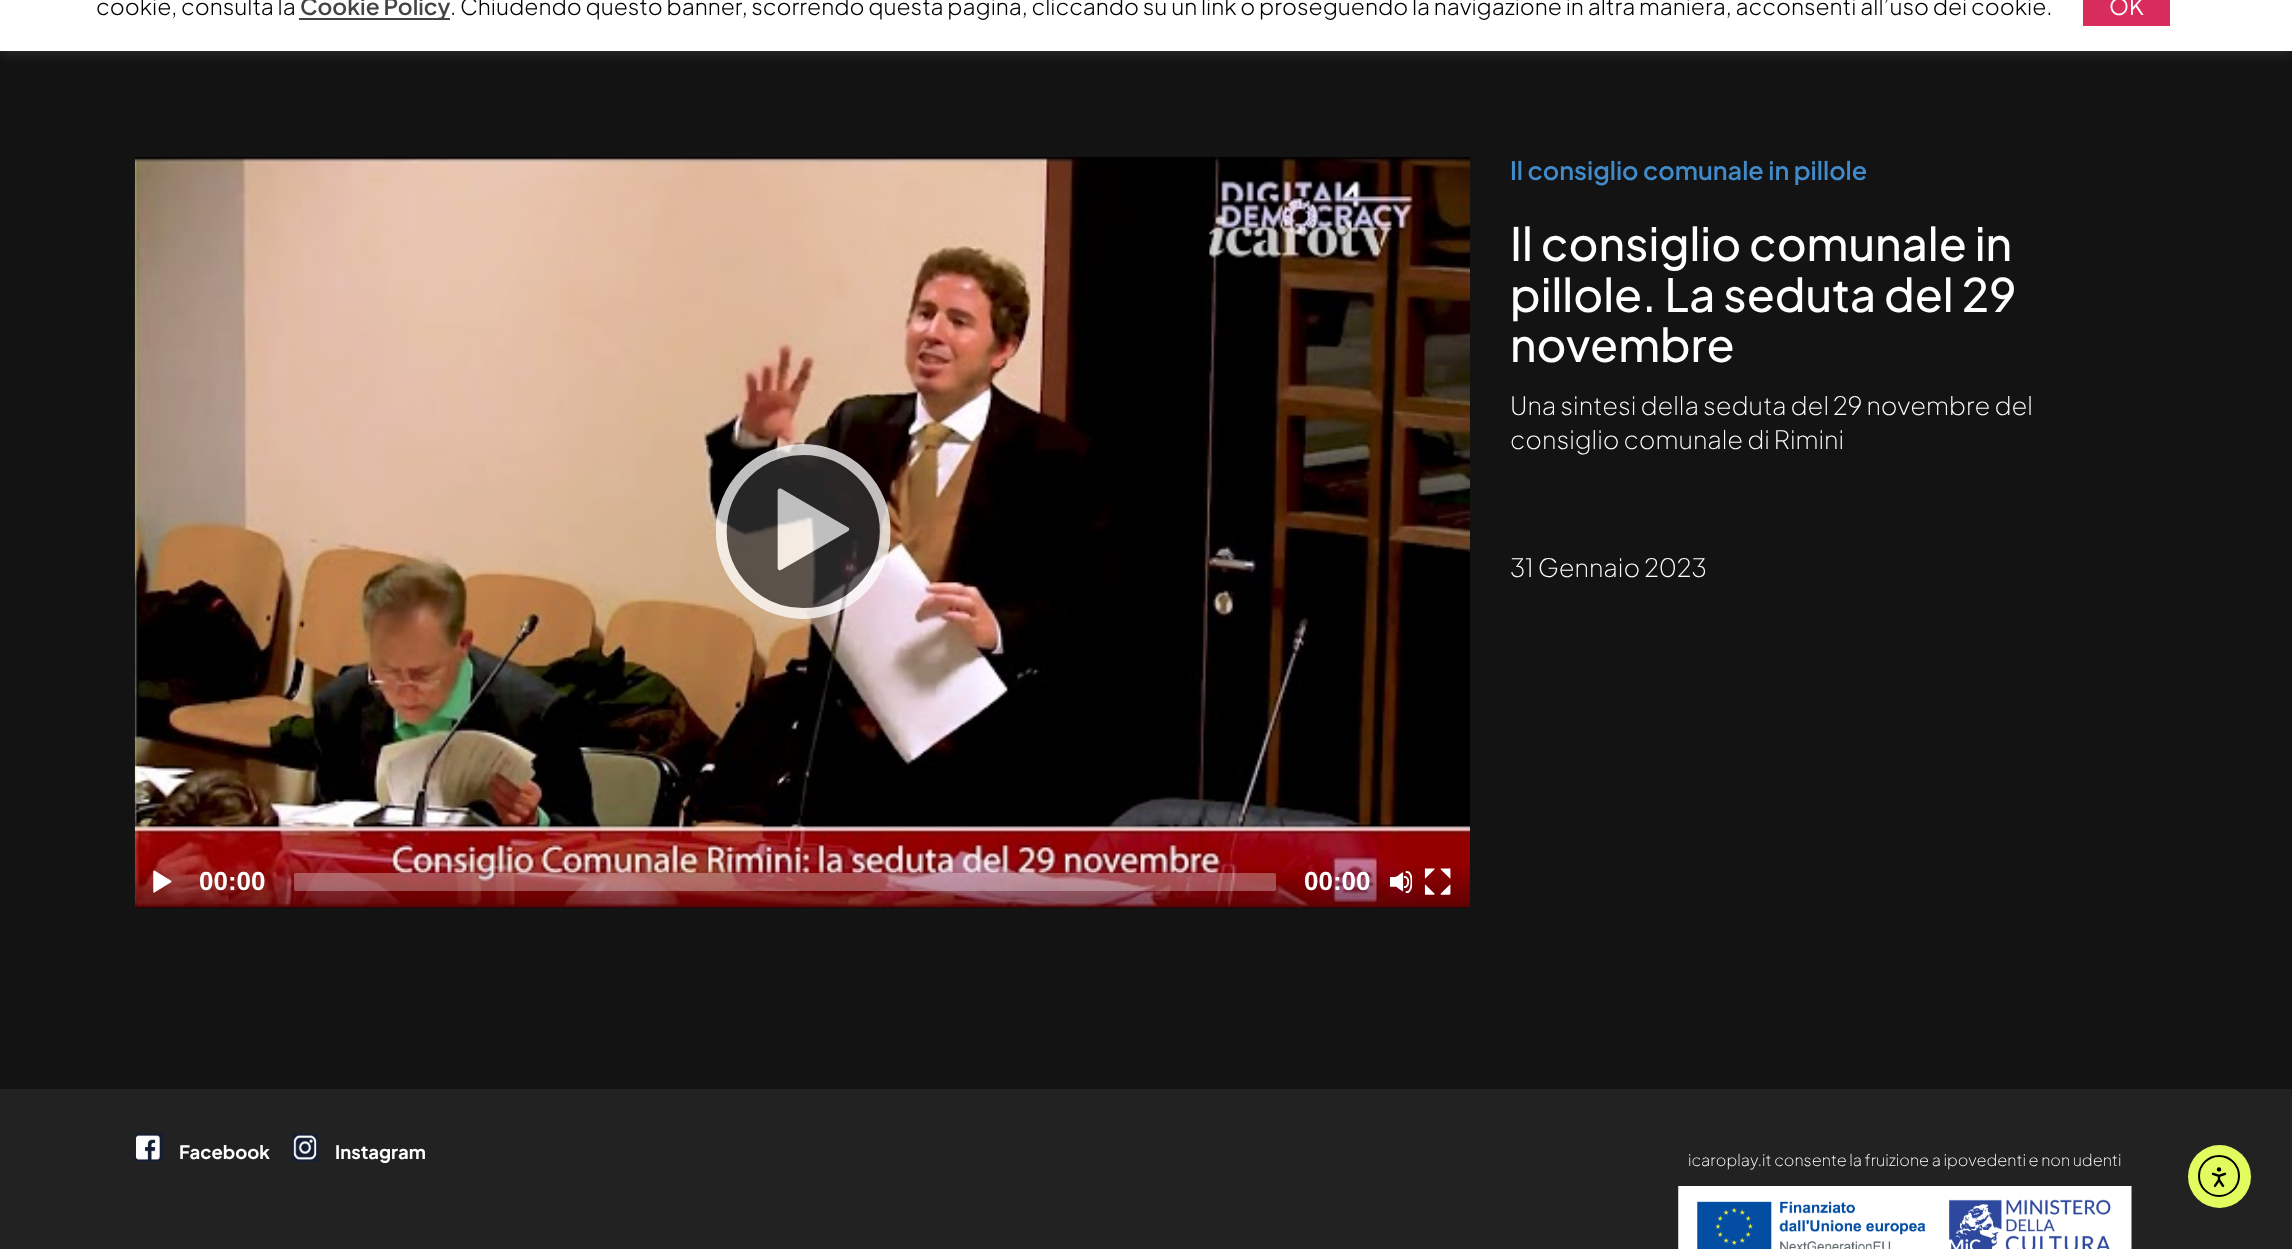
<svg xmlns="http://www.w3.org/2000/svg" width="2292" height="1249">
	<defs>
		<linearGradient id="g1" gradientUnits="userSpaceOnUse" x1="802" y1="864" x2="802" y2="908"><stop offset="0" stop-color="#000000" stop-opacity="0" /><stop offset="1" stop-color="#000000" stop-opacity="0.35" /></linearGradient>
	</defs>
	<rect width="100%" height="100%" fill="#131313" />
	<rect x="0" y="-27" width="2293" height="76" fill="#ACABAB" fill-opacity="0.3" filter="blur(9px)" />
	<rect x="0" y="0" width="2292" height="51" fill="#FFFFFF" />
	<text x="96" y="15" font-family="Plus Jakarta Sans" font-size="22.75" font-weight="300" fill="#000000">cookie, consulta la</text>
	<rect x="299" y="18" width="151" height="2" fill="#444444" />
	<text x="300" y="15" font-family="Plus Jakarta Sans" font-size="22.75" font-weight="600" fill="#444444">Cookie Policy</text>
	<text x="450" y="15" font-family="Plus Jakarta Sans" font-size="22.75" font-weight="300" fill="#000000">. Chiudendo questo banner, scorrendo questa pagina, cliccando su un link o proseguendo la navigazione in altra maniera, acconsenti all’uso dei cookie.</text>
	<rect x="2083" y="0" width="87" height="26" fill="#D72C5C" />
	<text x="2109" y="15" font-family="Plus Jakarta Sans" font-size="22.75" fill="#FFFFFF">OK</text>
	<text x="1510" y="180" font-family="Plus Jakarta Sans" font-size="25.25" font-weight="600" fill="#428BCA">Il consiglio comunale in pillole</text>
	<g font-family="Plus Jakarta Sans" font-size="45.8" font-weight="500" fill="#FFFFFF">
		<text x="1510" y="261">Il consiglio comunale in</text>
		<text x="1510" y="312">pillole. La seduta del 29</text>
		<text x="1510" y="362">novembre</text>
	</g>
	<g font-family="Plus Jakarta Sans" font-size="25.25" font-weight="200" fill="#FFFFFF">
		<text x="1510" y="415">Una sintesi della seduta del 29 novembre del</text>
		<text x="1510" y="449">consiglio comunale di Rimini</text>
		<text x="1510" y="577">31 Gennaio 2023</text>
	</g>
	<rect x="135" y="907" width="1335" height="1" fill="#000000" />
	<image x="134" y="157" width="1336" height="751" href="assets/img1.png" />
	<image x="716" y="444" width="175" height="175" href="assets/img2.png" />
	<rect x="135" y="867" width="1335" height="41" fill="url(#g1)" />
	<image x="153" y="870" width="19" height="23" href="assets/img3.png" />
	<text x="199" y="890" font-family="Liberation Sans" font-size="26" font-weight="700" fill="#FFFFFF">00:00</text>
	<rect x="294" y="873" width="982" height="18" rx="2" fill="#FFFFFF" fill-opacity="0.3" />
	<text x="1304" y="890" font-family="Liberation Sans" font-size="26" font-weight="700" fill="#FFFFFF">00:00</text>
	<image x="1389" y="871" width="24" height="22" href="assets/img4.png" />
	<image x="1424" y="868" width="27" height="27" href="assets/img5.png" />
	<rect x="0" y="1089" width="2292" height="160" fill="#222222" />
	<image x="134" y="1133" width="29" height="29" href="assets/img6.png" />
	<text x="179" y="1159" font-family="Plus Jakarta Sans" font-size="18.5" font-weight="700" fill="#FFFFFF">Facebook</text>
	<image x="292" y="1133" width="27" height="29" href="assets/img7.png" />
	<text x="335" y="1159" font-family="Plus Jakarta Sans" font-size="18.5" font-weight="700" fill="#FFFFFF">Instagram</text>
	<text x="1688" y="1166" font-family="Plus Jakarta Sans" font-size="16.05" font-weight="200" fill="#FFFFFF">icaroplay.it consente la fruizione a ipovedenti e non udenti</text>
	<image x="1678" y="1186" width="454" height="63" href="assets/img8.png" />
	<circle cx="2219.5" cy="1176.5" r="31.5" fill="#E2FC60" />
	<circle cx="2219" cy="1176" r="20" fill="none" stroke="#000000" stroke-width="2" />
	<image x="2211" y="1167" width="16" height="21" href="assets/img9.png" />
</svg>
